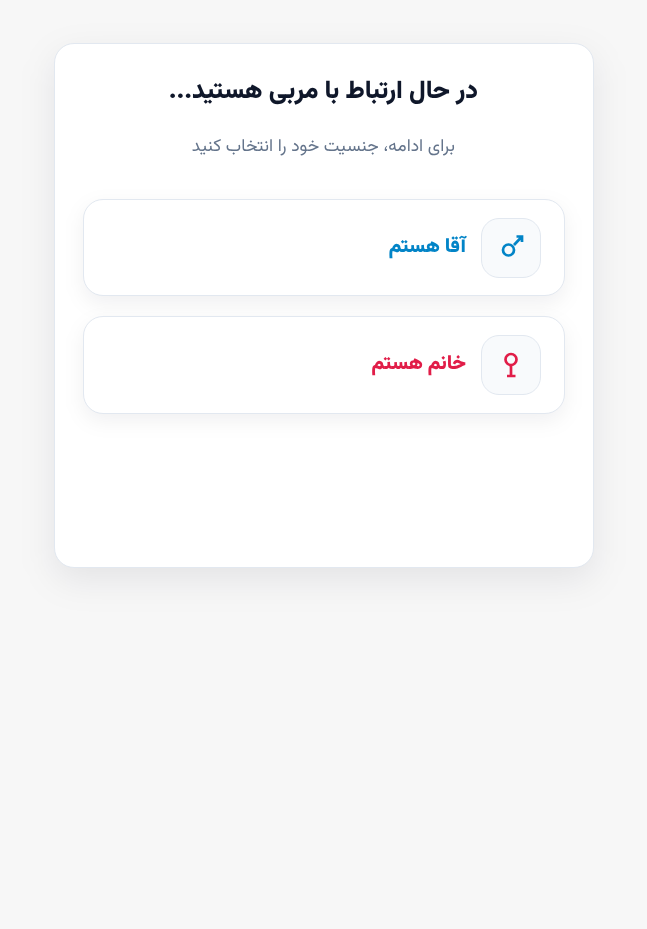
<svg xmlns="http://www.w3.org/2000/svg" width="647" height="929">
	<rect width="100%" height="100%" fill="#F7F7F7" />
	<rect x="54" y="55" width="540" height="525" rx="20" fill="#020617" fill-opacity="0.08" filter="blur(17.5px)" />
	<rect x="54.5" y="43.5" width="539" height="524" rx="19.5" fill="#FFFFFF" stroke="#E2E8F0" />
	<text x="478" y="98" font-family="Vazirmatn" font-size="25" font-weight="900" direction="rtl" fill="#0F172A">در حال ارتباط با مربی هستید...</text>
	<text x="455" y="151" font-family="Vazirmatn" font-size="17.5" direction="rtl" fill="#64748B">برای ادامه، جنسیت خود را انتخاب کنید</text>
	<rect x="83" y="206" width="482" height="98" rx="20" fill="#020617" fill-opacity="0.06" filter="blur(10px)" />
	<rect x="83.5" y="199.5" width="481" height="96" rx="19.5" fill="#FFFFFF" stroke="#E2E8F0" />
	<rect x="481.5" y="218.5" width="59" height="59" rx="17.5" fill="#F8FAFC" stroke="#E2E8F0" />
	<circle cx="508.5" cy="250" r="5.5" fill="none" stroke="#0284C7" stroke-width="2.7" />
	<path d="M514 245L522 236.5M522 242V236.5H516.5" fill="none" stroke="#0284C7" stroke-width="2.7" />
	<text x="466" y="252" font-family="Vazirmatn" font-size="20" font-weight="900" direction="rtl" fill="#0284C7">آقا هستم</text>
	<rect x="83" y="324" width="482" height="97" rx="20" fill="#020617" fill-opacity="0.06" filter="blur(10px)" />
	<rect x="83.5" y="316.5" width="481" height="97" rx="19.5" fill="#FFFFFF" stroke="#E2E8F0" />
	<rect x="481.5" y="335.5" width="59" height="59" rx="17.5" fill="#F8FAFC" stroke="#E2E8F0" />
	<circle cx="511" cy="359.5" r="5.5" fill="none" stroke="#E11D48" stroke-width="2.7" />
	<path d="M511 365V376M507 376H515.5" fill="none" stroke="#E11D48" stroke-width="2.7" />
	<text x="466" y="369" font-family="Vazirmatn" font-size="20" font-weight="900" direction="rtl" fill="#E11D48">خانم هستم</text>
</svg>
